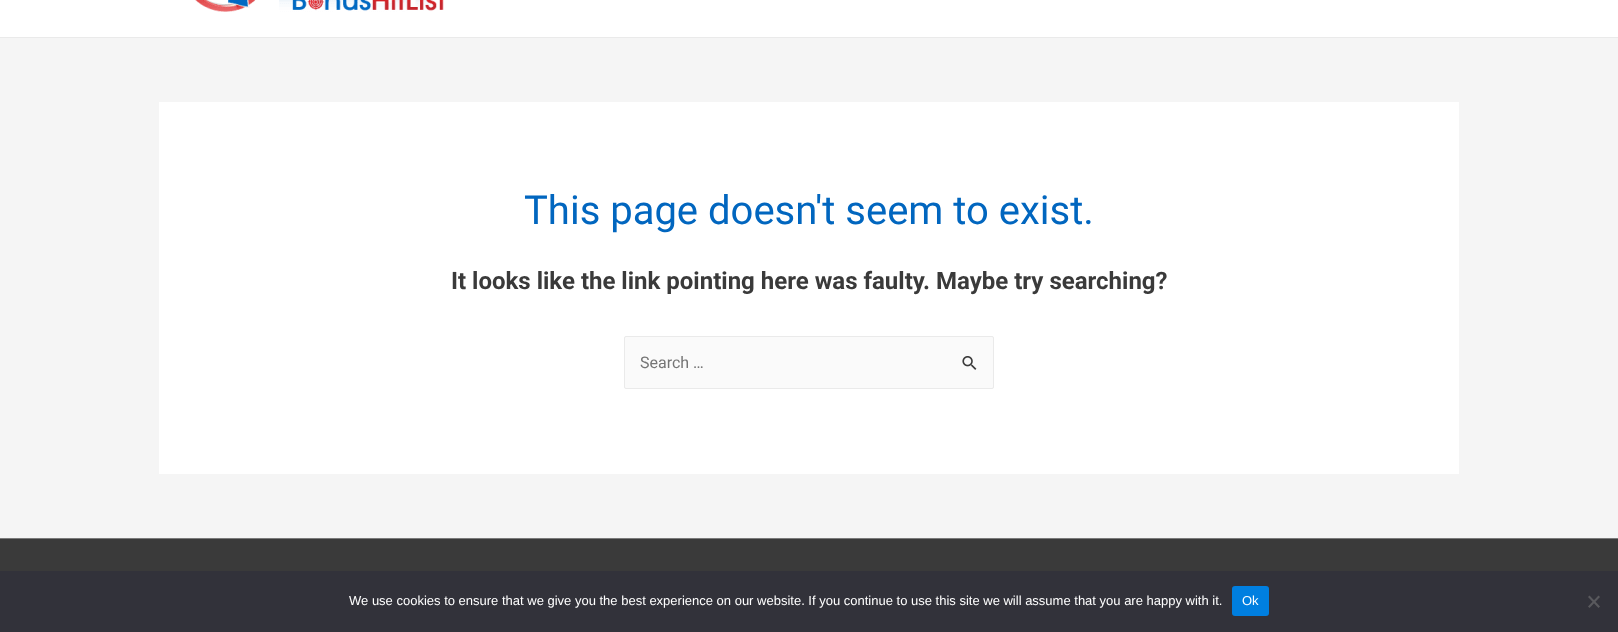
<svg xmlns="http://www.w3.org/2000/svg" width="1618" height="632">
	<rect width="100%" height="100%" fill="#F5F5F5" />
	<rect x="0" y="0" width="1618" height="37" fill="#FFFFFF" />
	<rect x="0" y="37" width="1618" height="1" fill="#EAEAEA" />
	<image x="195" y="0" width="249" height="12" href="assets/img1.png" />
	<rect x="159" y="102" width="1300" height="372" fill="#FFFFFF" />
	<text x="524" y="224" font-family="Roboto" font-size="40" fill="#0166BF">This page doesn't seem to exist.</text>
	<text x="451" y="289" font-family="Roboto" font-size="24" font-weight="700" fill="#3A3A3A">It looks like the link pointing here was faulty. Maybe try searching?</text>
	<rect x="624.5" y="336.5" width="369" height="52" rx="1.5" fill="#FAFAFA" stroke="#EAEAEA" />
	<text x="640" y="368" font-family="Roboto" font-size="16" fill="#757575">Search …</text>
	<image x="962" y="356" width="15" height="14" href="assets/img2.png" />
	<rect x="0" y="538" width="1618" height="1" fill="#7A7A7A" />
	<rect x="0" y="539" width="1618" height="32" fill="#3A3A3A" />
	<rect x="0" y="571" width="1618" height="61" fill="#32323A" />
	<text x="349" y="605" font-family="Liberation Sans" font-size="13" fill="#FFFFFF">We use cookies to ensure that we give you the best experience on our website. If you continue to use this site we will assume that you are happy with it.</text>
	<rect x="1232" y="586" width="37" height="30" rx="3" fill="#007FE0" />
	<text x="1242" y="605" font-family="Liberation Sans" font-size="13" fill="#FFFFFF">Ok</text>
	<path d="M1598.5 595.5L1600 597L1589.5 608L1588 606.5Z" fill="#59595D" />
	<path d="M1588 597L1589.5 595.5L1600 606.5L1598.5 608Z" fill="#59595D" />
</svg>
